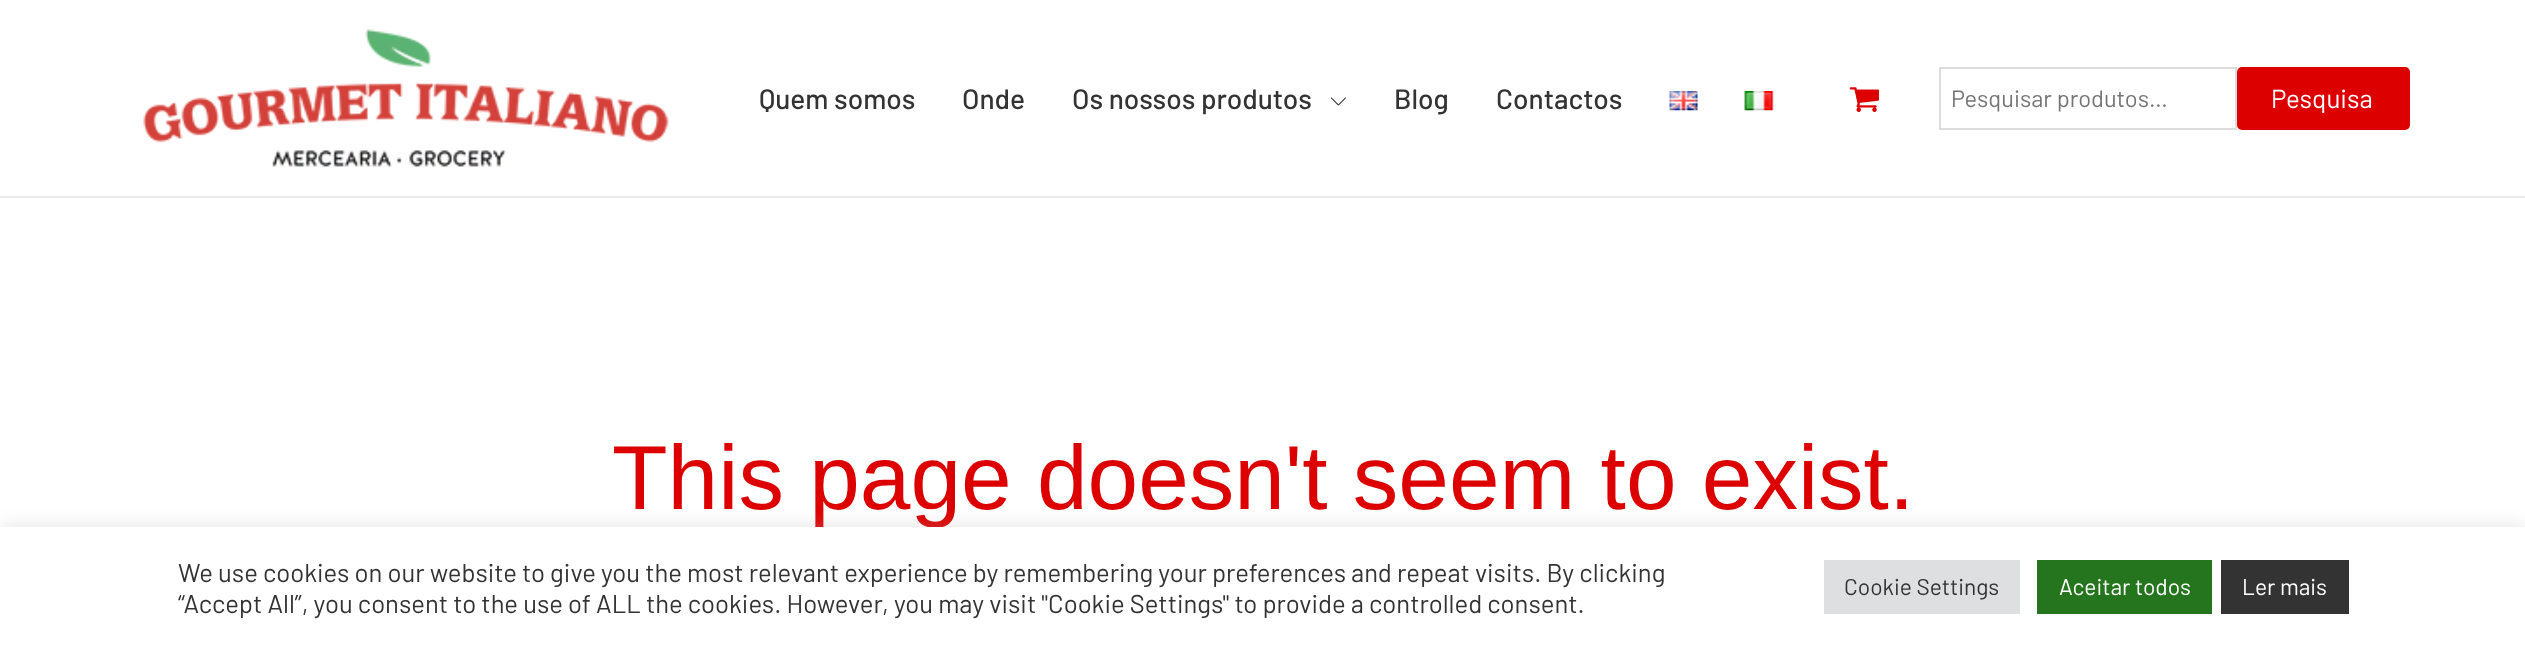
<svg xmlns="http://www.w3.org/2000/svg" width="2525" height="646">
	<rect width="100%" height="100%" fill="#FFFFFF" />
	<rect x="0" y="196" width="2525" height="2" fill="#EAEAEA" />
	<image x="143" y="29" width="526" height="138" href="assets/img1.png" />
	<g font-family="Barlow" font-size="28" font-weight="500" fill="#333333">
		<text x="759" y="109">Quem somos</text>
		<text x="962" y="109">Onde</text>
		<text x="1072" y="109">Os nossos produtos</text>
	</g>
	<image x="1330" y="97" width="16" height="9" href="assets/img2.png" />
	<g font-family="Barlow" font-size="28" font-weight="500" fill="#333333">
		<text x="1394" y="109">Blog</text>
		<text x="1496" y="109">Contactos</text>
	</g>
	<image x="1669" y="91" width="29" height="20" href="assets/img3.png" />
	<image x="1744" y="91" width="30" height="20" href="assets/img4.png" />
	<image x="1849" y="87" width="30" height="25" href="assets/img5.png" />
	<rect x="1940" y="68" width="296" height="61" fill="none" stroke="#DDDDDD" stroke-width="2" />
	<text x="1951" y="107" font-family="Barlow" font-size="23.6" fill="#757575">Pesquisar produtos…</text>
	<rect x="2237" y="67" width="173" height="63" rx="5" fill="#DD0000" />
	<text x="2271" y="108" font-family="Barlow" font-size="26" fill="#FFFFFF">Pesquisa</text>
	<text x="612" y="509" font-family="Liberation Sans" font-size="91" fill="#DD0000">This page doesn't seem to exist.</text>
	<rect x="0" y="525" width="2525" height="121" fill="#ACABAB" fill-opacity="0.3" filter="blur(9px)" />
	<rect x="0" y="527" width="2525" height="119" fill="#FFFFFF" />
	<g font-family="Barlow" font-size="25.67" fill="#333333">
		<text x="178" y="582">We use cookies on our website to give you the most relevant experience by remembering your preferences and repeat visits. By clicking</text>
		<text x="178" y="613">“Accept All”, you consent to the use of ALL the cookies. However, you may visit "Cookie Settings" to provide a controlled consent.</text>
	</g>
	<rect x="1824" y="560" width="196" height="54" fill="#DEDFE0" />
	<text x="1844" y="595" font-family="Barlow" font-size="22.75" fill="#333333">Cookie Settings</text>
	<rect x="2037" y="560" width="175" height="54" fill="#24751D" />
	<text x="2059" y="595" font-family="Barlow" font-size="22.75" fill="#FFFFFF">Aceitar todos</text>
	<rect x="2221" y="560" width="128" height="54" fill="#333333" />
	<text x="2242" y="595" font-family="Barlow" font-size="22.75" fill="#FFFFFF">Ler mais</text>
</svg>
